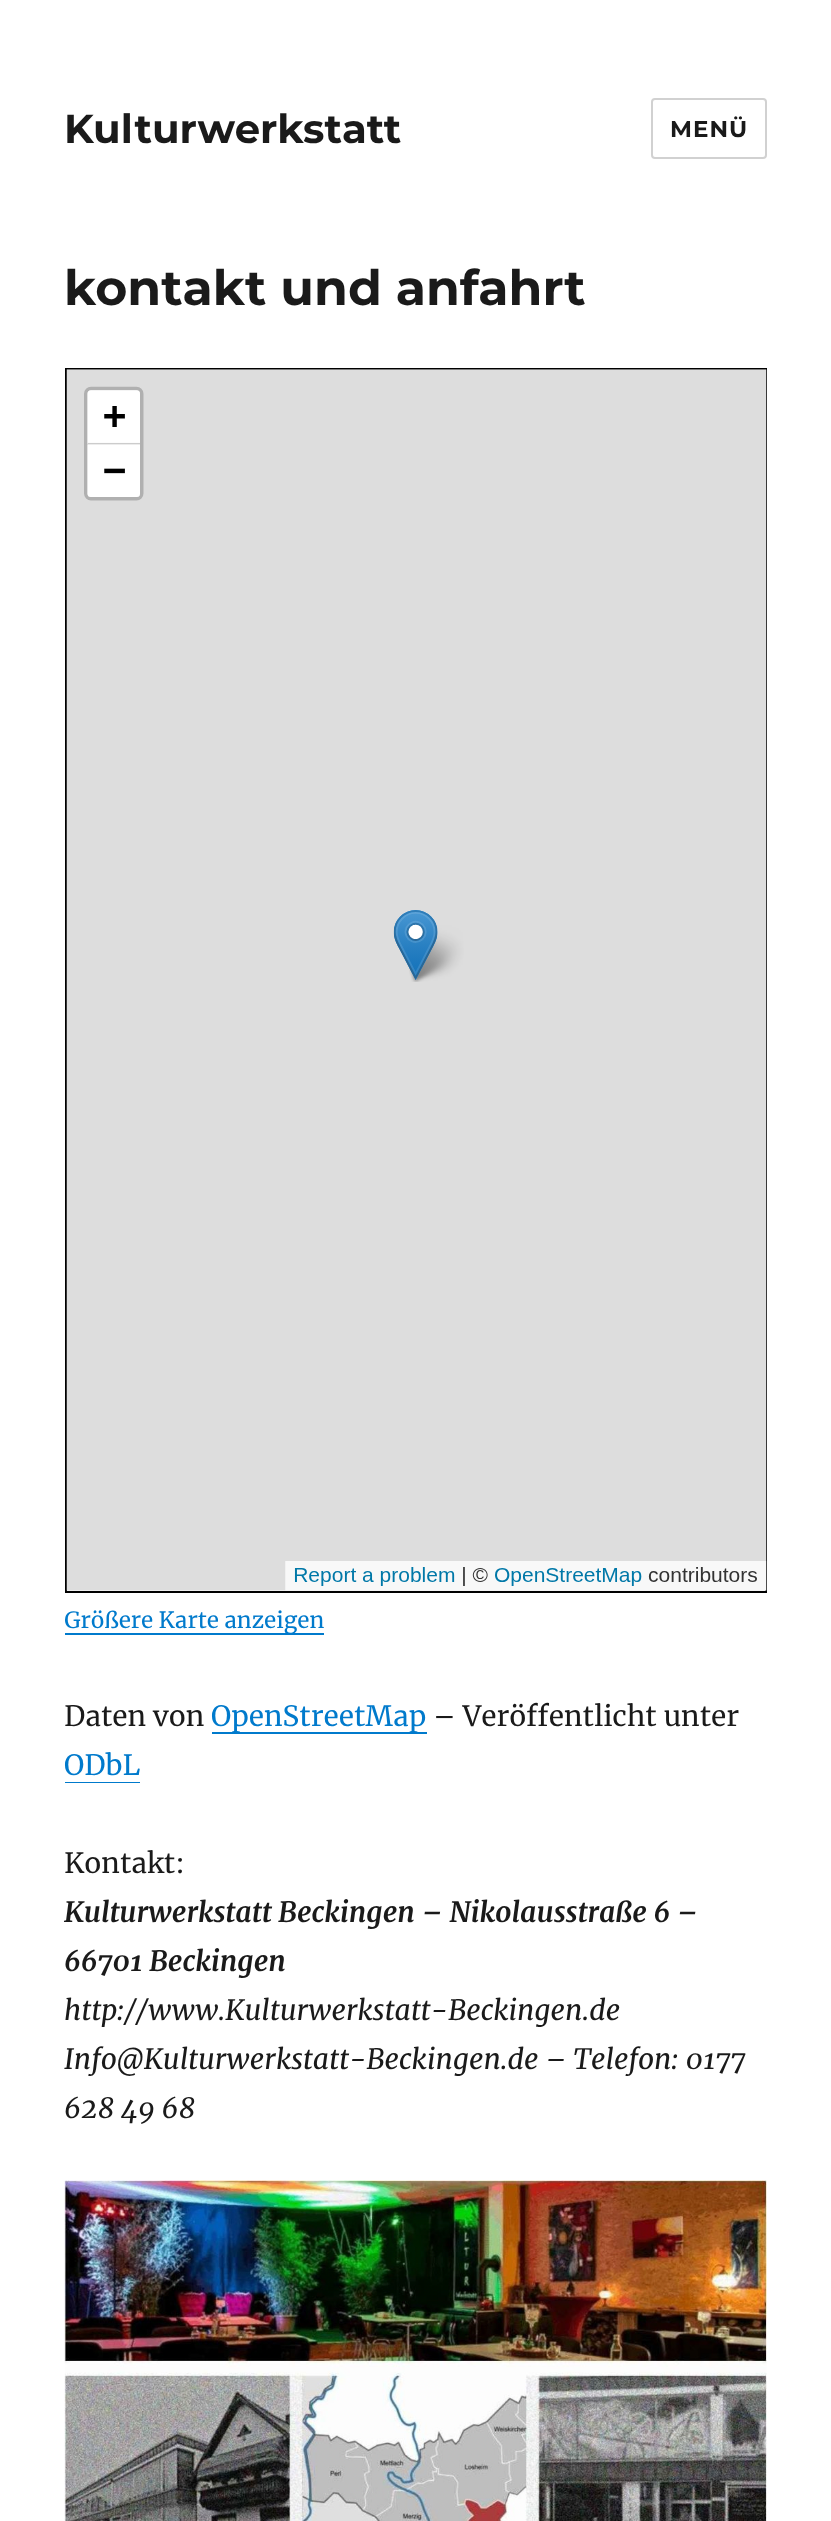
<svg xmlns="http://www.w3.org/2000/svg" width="831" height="2521">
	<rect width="100%" height="100%" fill="#FFFFFF" />
	<text x="64" y="143" font-family="Montserrat" font-size="40.25" font-weight="100" fill="#1A1A1A">Kulturwerkstatt</text>
	<rect x="652" y="99" width="114" height="59" rx="3" fill="none" stroke="#D1D1D1" stroke-width="2" />
	<text x="670" y="137" font-family="Montserrat" font-size="23" font-weight="100" letter-spacing="1" fill="#1A1A1A">MENÜ</text>
	<text x="64" y="305" font-family="Montserrat" font-size="49" font-weight="100" fill="#1A1A1A">kontakt und anfahrt</text>
	<rect x="66" y="369" width="700" height="1223" fill="none" stroke="#000000" stroke-width="2" />
	<image x="66" y="369" width="701" height="1222" href="assets/img1.png" />
	<path d="M65 1633V1635H324V1607V1633Z" fill="#007ACC" />
	<text x="64" y="1628" font-family="Merriweather" font-size="22.4" fill="#007ACC">Größere Karte anzeigen</text>
	<text x="64" y="1726" font-family="Merriweather" font-size="28" fill="#1A1A1A">Daten von</text>
	<rect x="212" y="1732" width="215" height="2" fill="#007ACC" />
	<text x="211" y="1726" font-family="Merriweather" font-size="28" fill="#007ACC">OpenStreetMap</text>
	<text x="433" y="1726" font-family="Merriweather" font-size="28" fill="#1A1A1A">– Veröffentlicht unter</text>
	<text x="64" y="1775" font-family="Merriweather" font-size="28" fill="#007ACC">ODbL</text>
	<rect x="65" y="1782" width="75" height="1" fill="#007ACC" />
	<text x="64" y="1873" font-family="Merriweather" font-size="28" fill="#1A1A1A">Kontakt:</text>
	<g font-family="Merriweather" font-size="28" font-weight="700" font-style="italic" fill="#1A1A1A">
		<text x="64" y="1922">Kulturwerkstatt Beckingen – Nikolausstraße 6 –</text>
		<text x="64" y="1971">66701 Beckingen</text>
	</g>
	<g font-family="Merriweather" font-size="28" font-style="italic" fill="#1A1A1A">
		<text x="64" y="2020">http://www.Kulturwerkstatt-Beckingen.de</text>
		<text x="64" y="2069">Info@Kulturwerkstatt-Beckingen.de – Telefon: 0177</text>
		<text x="64" y="2118">628 49 68</text>
	</g>
	<image x="64" y="2180" width="703" height="341" href="assets/img2.png" />
</svg>
